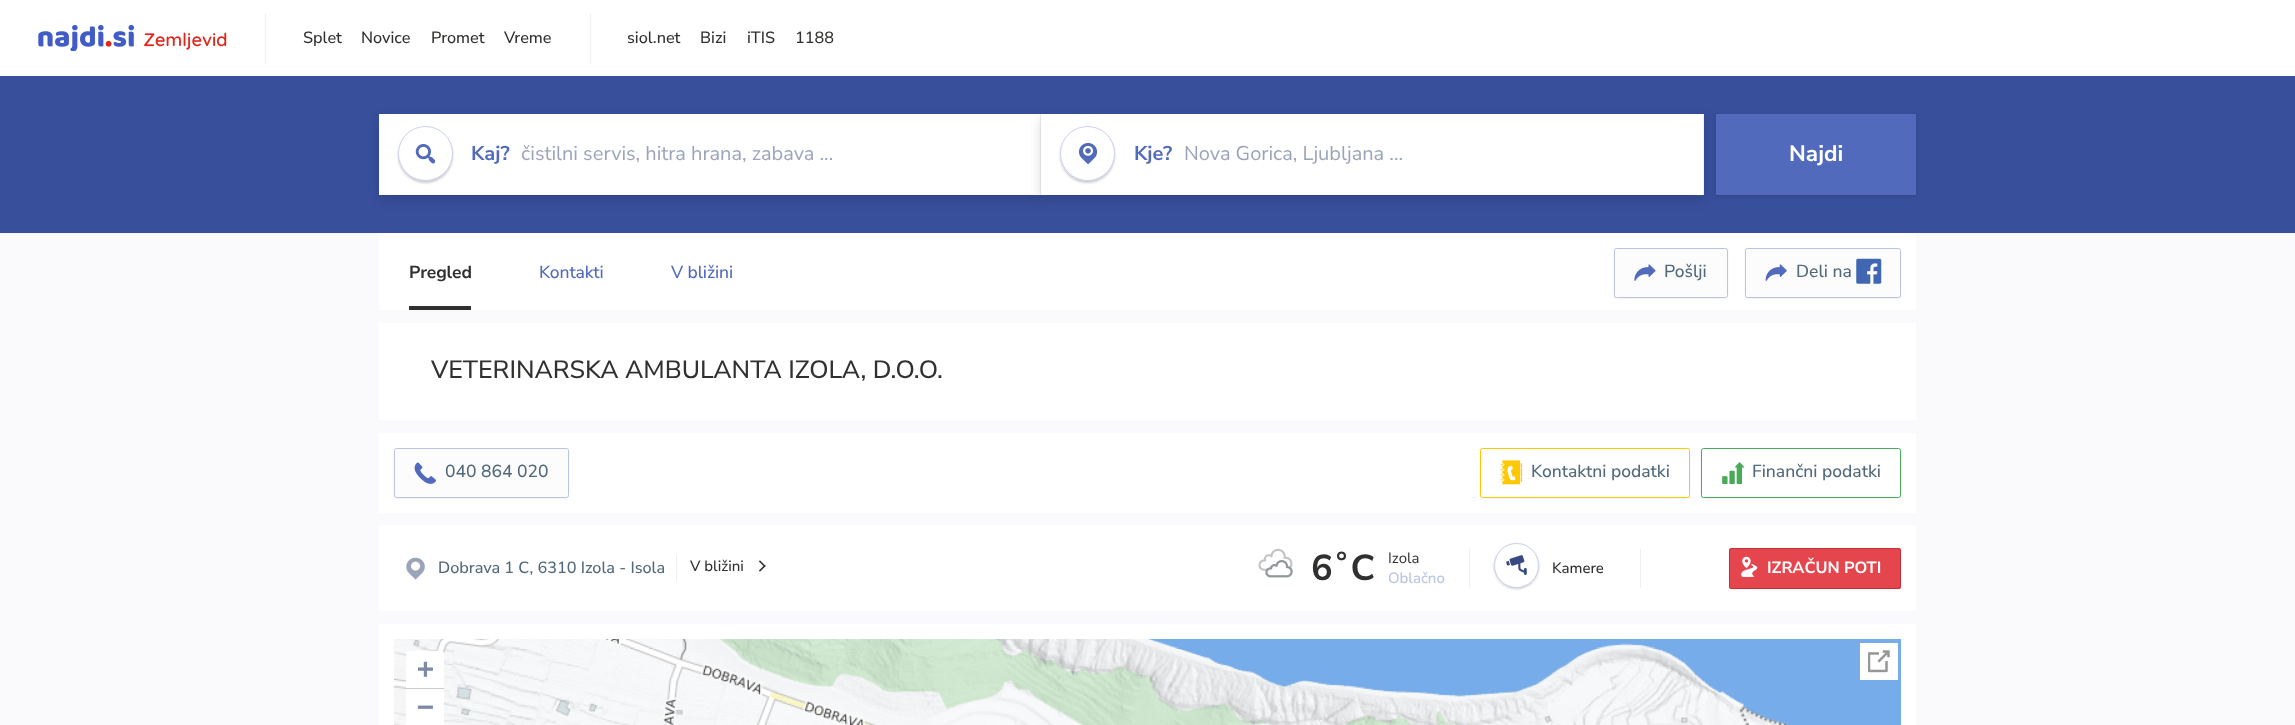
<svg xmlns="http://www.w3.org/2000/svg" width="2295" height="725">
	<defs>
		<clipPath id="clip1"><path d="M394 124H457V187H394ZM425.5 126C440.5 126 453 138.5 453 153.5C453 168.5 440.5 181 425.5 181C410.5 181 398 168.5 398 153.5C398 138.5 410.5 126 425.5 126Z" clip-rule="evenodd" /></clipPath>
		<clipPath id="clip2"><path d="M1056 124H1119V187H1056ZM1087.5 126C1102.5 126 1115 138.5 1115 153.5C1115 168.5 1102.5 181 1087.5 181C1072.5 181 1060 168.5 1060 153.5C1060 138.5 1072.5 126 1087.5 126Z" clip-rule="evenodd" /></clipPath>
	</defs>
	<rect width="100%" height="100%" fill="#FFFFFF" />
	<image x="38" y="24" width="189" height="27" href="assets/img1.png" />
	<rect x="265" y="13" width="1" height="51" fill="#EFEFEF" />
	<g font-family="Nunito Sans" font-size="16.25" font-weight="500" fill="#30302F">
		<text x="303" y="43">Splet</text>
		<text x="361" y="43">Novice</text>
		<text x="431" y="43">Promet</text>
		<text x="504" y="43">Vreme</text>
	</g>
	<rect x="590" y="13" width="1" height="51" fill="#EFEFEF" />
	<g font-family="Nunito Sans" font-size="16.25" font-weight="500" fill="#30302F">
		<text x="627" y="43">siol.net</text>
		<text x="700" y="43">Bizi</text>
		<text x="747" y="43">iTIS</text>
		<text x="795" y="43">1188</text>
	</g>
	<rect x="0" y="233" width="2295" height="492" fill="#FAFAFC" />
	<rect x="0" y="76" width="2295" height="157" fill="#384F9C" />
	<rect x="379" y="118" width="662" height="81" fill="#000000" fill-opacity="0.15" filter="blur(6px)" />
	<rect x="379" y="114" width="661" height="81" fill="#FFFFFF" />
	<rect x="1040" y="114" width="1" height="81" fill="#EFEFEF" />
	<g clip-path="url(#clip1)">
		<rect x="398" y="128" width="55" height="55" rx="27.5" fill="#000000" fill-opacity="0.2" filter="blur(1px)" />
	</g>
	<image x="415" y="144" width="20" height="20" href="assets/img2.png" />
	<circle cx="425.5" cy="153.5" r="27" fill="none" stroke="#526ABC" stroke-opacity="0.3" />
	<text x="471" y="160" font-family="Nunito Sans" font-size="20" font-weight="700" fill="#526ABC">Kaj?</text>
	<text x="521" y="160" font-family="Nunito Sans" font-size="20" fill="#9CA4B9">čistilni servis, hitra hrana, zabava ...</text>
	<rect x="1041" y="118" width="663" height="81" fill="#000000" fill-opacity="0.15" filter="blur(6px)" />
	<rect x="1041" y="114" width="662" height="81" fill="#FFFFFF" />
	<rect x="1703" y="114" width="1" height="81" fill="#EFEFEF" />
	<g clip-path="url(#clip2)">
		<rect x="1060" y="128" width="55" height="55" rx="27.5" fill="#000000" fill-opacity="0.2" filter="blur(1px)" />
	</g>
	<image x="1079" y="143" width="19" height="22" href="assets/img3.png" />
	<circle cx="1087.5" cy="153.5" r="27" fill="none" stroke="#526ABC" stroke-opacity="0.3" />
	<text x="1134" y="160" font-family="Nunito Sans" font-size="20" font-weight="700" fill="#526ABC">Kje?</text>
	<text x="1184" y="160" font-family="Nunito Sans" font-size="20" fill="#9CA4B9">Nova Gorica, Ljubljana ...</text>
	<rect x="1716" y="115" width="200" height="81" fill="#000000" fill-opacity="0.15" filter="blur(2px)" />
	<rect x="1716" y="114" width="200" height="81" fill="#526ABC" />
	<text x="1789" y="161" font-family="Nunito Sans" font-size="22.5" font-weight="700" fill="#FFFFFF">Najdi</text>
	<rect x="379" y="233" width="1537" height="77" fill="#FFFFFF" />
	<text x="409" y="278" font-family="Nunito Sans" font-size="17.5" font-weight="700" letter-spacing="-0.1" fill="#30302F">Pregled</text>
	<rect x="409" y="306" width="62" height="4" fill="#30302F" />
	<g font-family="Nunito Sans" font-size="17.5" font-weight="500" letter-spacing="-0.1" fill="#526ABC">
		<text x="539" y="278">Kontakti</text>
		<text x="671" y="278">V bližini</text>
	</g>
	<rect x="1614" y="249" width="114" height="50" rx="2.5" fill="#000000" fill-opacity="0.05" filter="blur(1px)" />
	<rect x="1614" y="248" width="114" height="50" rx="2.5" fill="#FCFCFC" />
	<image x="1634" y="264" width="22" height="17" href="assets/img4.png" />
	<rect x="1614.5" y="248.5" width="113" height="49" rx="2" fill="none" stroke="#BAC3E0" />
	<text x="1664" y="277" font-family="Nunito Sans" font-size="17.5" font-weight="500" fill="#51697A">Pošlji</text>
	<rect x="1745" y="249" width="156" height="50" rx="2.5" fill="#000000" fill-opacity="0.05" filter="blur(1px)" />
	<rect x="1745" y="248" width="156" height="50" rx="2.5" fill="#FCFCFC" />
	<image x="1765" y="264" width="22" height="17" href="assets/img5.png" />
	<rect x="1745.5" y="248.5" width="155" height="49" rx="2" fill="none" stroke="#BAC3E0" />
	<text x="1796" y="277" font-family="Nunito Sans" font-size="17.5" font-weight="500" fill="#51697A">Deli na</text>
	<image x="1856" y="258" width="26" height="26" href="assets/img6.png" />
	<rect x="379" y="323" width="1537" height="97" fill="#FFFFFF" />
	<text x="431" y="378" font-family="Nunito Sans" font-size="25" font-weight="500" fill="#30302F">VETERINARSKA AMBULANTA IZOLA, D.O.O.</text>
	<rect x="379" y="433" width="1537" height="80" fill="#FFFFFF" />
	<rect x="394" y="449" width="175" height="50" rx="2.5" fill="#000000" fill-opacity="0.05" filter="blur(1px)" />
	<rect x="394" y="448" width="175" height="50" rx="2.5" fill="#FCFCFC" />
	<image x="414" y="462" width="22" height="22" href="assets/img7.png" />
	<rect x="394.5" y="448.5" width="174" height="49" rx="2" fill="none" stroke="#BAC3E0" />
	<text x="445" y="477" font-family="Nunito Sans" font-size="17.5" font-weight="500" fill="#51697A">040 864 020</text>
	<rect x="1480" y="449" width="210" height="50" rx="2.5" fill="#000000" fill-opacity="0.05" filter="blur(1px)" />
	<rect x="1480" y="448" width="210" height="50" rx="2.5" fill="#FFFFFF" />
	<image x="1500" y="460" width="23" height="25" href="assets/img8.png" />
	<rect x="1480.5" y="448.5" width="209" height="49" rx="2" fill="none" stroke="#FFC802" />
	<text x="1531" y="477" font-family="Nunito Sans" font-size="17.5" font-weight="500" fill="#51697A">Kontaktni podatki</text>
	<rect x="1701" y="449" width="200" height="50" rx="2.5" fill="#000000" fill-opacity="0.05" filter="blur(1px)" />
	<rect x="1701" y="448" width="200" height="50" rx="2.5" fill="#FFFFFF" />
	<image x="1722" y="462" width="22" height="22" href="assets/img9.png" />
	<rect x="1701.5" y="448.5" width="199" height="49" rx="2" fill="none" stroke="#4AAA5A" />
	<text x="1752" y="477" font-family="Nunito Sans" font-size="17.5" font-weight="500" fill="#51697A">Finančni podatki</text>
	<rect x="379" y="525" width="1537" height="86" fill="#FFFFFF" />
	<image x="406" y="557" width="19" height="23" href="assets/img10.png" />
	<text x="438" y="573" font-family="Nunito Sans" font-size="16.25" font-weight="500" fill="#51697A">Dobrava 1 C, 6310 Izola - Isola</text>
	<rect x="676" y="555" width="1" height="26" fill="#EFEFEF" />
	<text x="690" y="571" font-family="Nunito Sans" font-size="15" font-weight="500" fill="#30302F">V bližini</text>
	<image x="759" y="560" width="7" height="12" href="assets/img11.png" />
	<image x="1258" y="548" width="35" height="30" href="assets/img12.png" />
	<text x="1311" y="580" font-family="Nunito Sans" font-size="36" font-weight="700" fill="#30302F">6˚C</text>
	<text x="1388" y="563" font-family="Nunito Sans" font-size="15" fill="#30302F">Izola</text>
	<text x="1388" y="583" font-family="Nunito Sans" font-size="15" font-weight="500" fill="#BAC3E0">Oblačno</text>
	<rect x="1469" y="549" width="1" height="39" fill="#EFEFEF" />
	<rect x="1494" y="544" width="45" height="45" rx="22.5" fill="#000000" fill-opacity="0.2" filter="blur(1px)" />
	<circle cx="1516.5" cy="565.5" r="22.5" fill="#FFFFFF" />
	<image x="1506" y="555" width="21" height="20" href="assets/img13.png" />
	<circle cx="1516.5" cy="565.5" r="22" fill="none" stroke="#526ABC" stroke-opacity="0.3" />
	<text x="1552" y="573" font-family="Nunito Sans" font-size="15" font-weight="500" fill="#30302F">Kamere</text>
	<rect x="1640" y="549" width="1" height="39" fill="#EFEFEF" />
	<rect x="1729" y="549" width="172" height="41" rx="2.5" fill="#000000" fill-opacity="0.05" filter="blur(1px)" />
	<rect x="1729" y="548" width="172" height="41" rx="2.5" fill="#E5454C" />
	<image x="1741" y="556" width="17" height="21" href="assets/img14.png" />
	<rect x="1729.5" y="548.5" width="171" height="40" rx="2" fill="none" stroke="#C03238" />
	<text x="1767" y="573" font-family="Nunito Sans" font-size="16.25" font-weight="700" fill="#FFFFFF">IZRAČUN POTI</text>
	<rect x="379" y="624" width="1537" height="101" fill="#FFFFFF" />
	<image x="394" y="639" width="315" height="10" href="assets/img15.png" />
	<image x="709" y="639" width="320" height="10" href="assets/img16.png" />
	<image x="1029" y="639" width="320" height="10" href="assets/img17.png" />
	<image x="1349" y="639" width="320" height="10" href="assets/img18.png" />
	<rect x="1669" y="639" width="232" height="10" fill="#77ACEB" />
	<image x="394" y="649" width="315" height="76" href="assets/img19.png" />
	<image x="709" y="649" width="320" height="76" href="assets/img20.png" />
	<image x="1029" y="649" width="320" height="76" href="assets/img21.png" />
	<image x="1349" y="649" width="320" height="76" href="assets/img22.png" />
	<image x="1669" y="649" width="232" height="76" href="assets/img23.png" />
	<path d="M408.5 651H441.5C443 651 444 652 444 653.5V689H406V653.5C406 652 407 651 408.5 651Z" fill="#FFFFFF" />
	<rect x="406" y="688" width="38" height="1" fill="#CCCCCC" />
	<text x="417" y="678" font-family="DejaVu Sans Mono" font-size="28" font-weight="700" fill="#7E89A4">+</text>
	<path d="M406 689H444V723.5C444 725 443 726 441.5 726H408.5C407 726 406 725 406 723.5Z" fill="#FFFFFF" />
	<text x="417" y="716" font-family="DejaVu Sans Mono" font-size="28" font-weight="700" fill="#7E89A4">−</text>
	<rect x="1860" y="643" width="38" height="37" fill="#FFFFFF" />
	<image x="1868" y="650" width="22" height="23" href="assets/img24.png" />
</svg>
